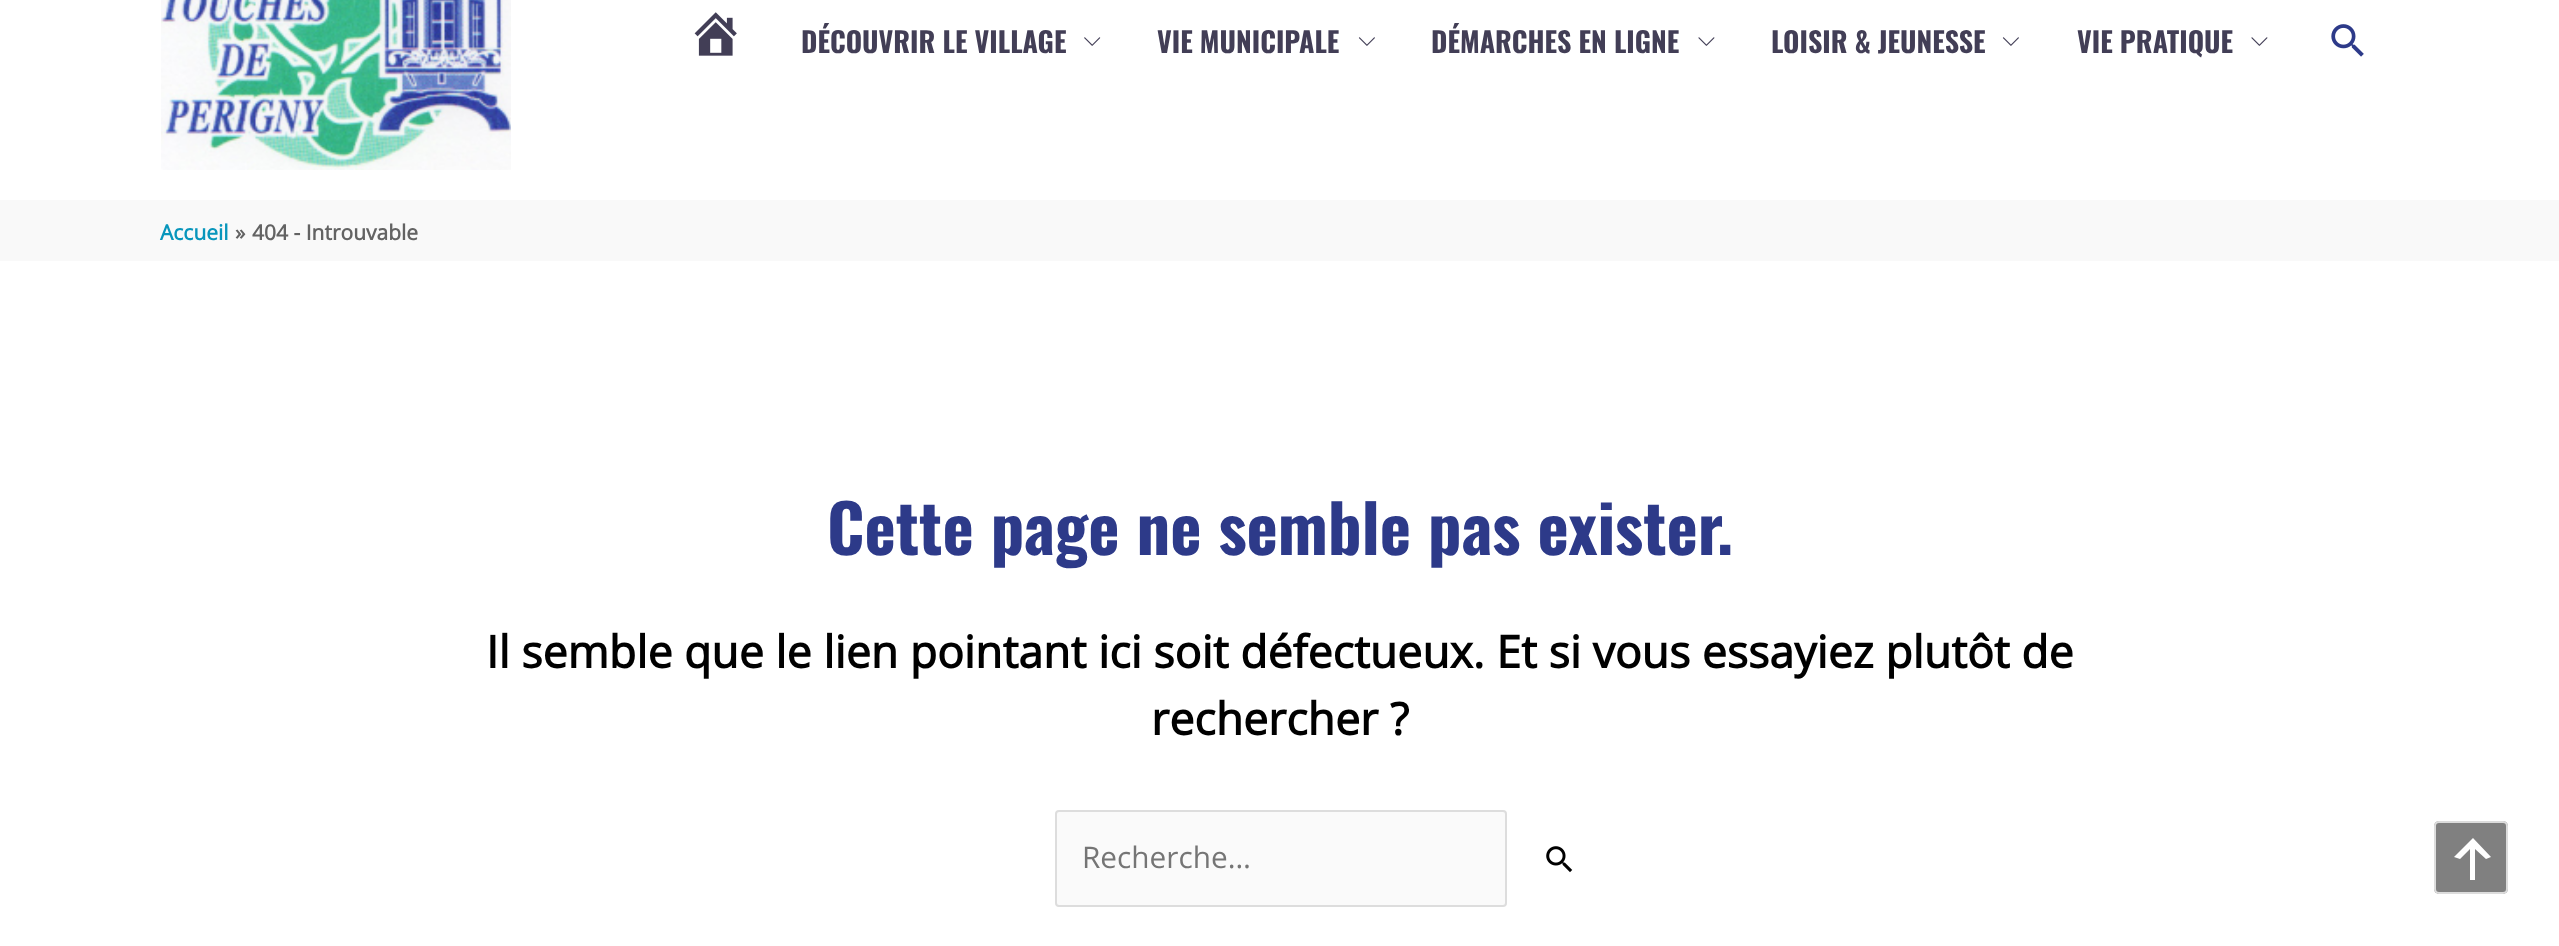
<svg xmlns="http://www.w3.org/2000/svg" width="2559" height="946">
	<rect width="100%" height="100%" fill="#FFFFFF" />
	<image x="161" y="0" width="350" height="170" href="assets/img1.png" />
	<image x="694" y="12" width="43" height="44" href="assets/img2.png" />
	<text x="801" y="53" font-family="Oswald" font-size="28" font-weight="700" fill="#423E56">DÉCOUVRIR LE VILLAGE</text>
	<image x="1084" y="37" width="17" height="9" href="assets/img3.png" />
	<text x="1157" y="53" font-family="Oswald" font-size="28" font-weight="700" fill="#423E56">VIE MUNICIPALE</text>
	<image x="1358" y="37" width="17" height="9" href="assets/img4.png" />
	<text x="1431" y="53" font-family="Oswald" font-size="28" font-weight="700" fill="#423E56">DÉMARCHES EN LIGNE</text>
	<image x="1698" y="37" width="17" height="9" href="assets/img5.png" />
	<text x="1771" y="53" font-family="Oswald" font-size="28" font-weight="700" fill="#423E56">LOISIR &amp; JEUNESSE</text>
	<image x="2002" y="37" width="17" height="9" href="assets/img4.png" />
	<text x="2077" y="53" font-family="Oswald" font-size="28" font-weight="700" fill="#423E56">VIE PRATIQUE</text>
	<image x="2251" y="37" width="17" height="9" href="assets/img5.png" />
	<image x="2331" y="24" width="33" height="33" href="assets/img6.png" />
	<rect x="0" y="200" width="2559" height="61" fill="#F9F9F9" />
	<text x="160" y="240" font-family="Open Sans" font-size="21" font-weight="700" fill="#0896BC">Accueil</text>
	<g font-family="Open Sans" font-size="21" font-weight="700" fill="#636363">
		<text x="235" y="240">»</text>
		<text x="252" y="240">404 - Introuvable</text>
	</g>
	<text x="827" y="555" font-family="Oswald" font-size="66.5" font-weight="700" fill="#2D3A89">Cette page ne semble pas exister.</text>
	<g font-family="Open Sans" font-size="44.6" font-weight="700" fill="#000000">
		<text x="486" y="668">Il semble que le lien pointant ici soit défectueux. Et si vous essayiez plutôt de</text>
		<text x="1151" y="735">rechercher ?</text>
	</g>
	<rect x="1056" y="811" width="450" height="95" rx="3" fill="#FAFAFA" stroke="#DDDDDD" stroke-width="2" />
	<text x="1082" y="868" font-family="Open Sans" font-size="29.75" fill="#757575">Recherche…</text>
	<image x="1546" y="846" width="27" height="27" href="assets/img7.png" />
	<rect x="2434" y="821" width="74" height="73" rx="5" fill="#808080" />
	<rect x="2435" y="822" width="72" height="71" rx="4" fill="none" stroke="#F2F2F2" stroke-opacity="0.8" stroke-width="2" />
	<path d="M2475 880H2470V849L2460 859L2454 857L2473 838L2491 857L2486 859L2475 849Z" fill="#FFFFFF" />
</svg>
